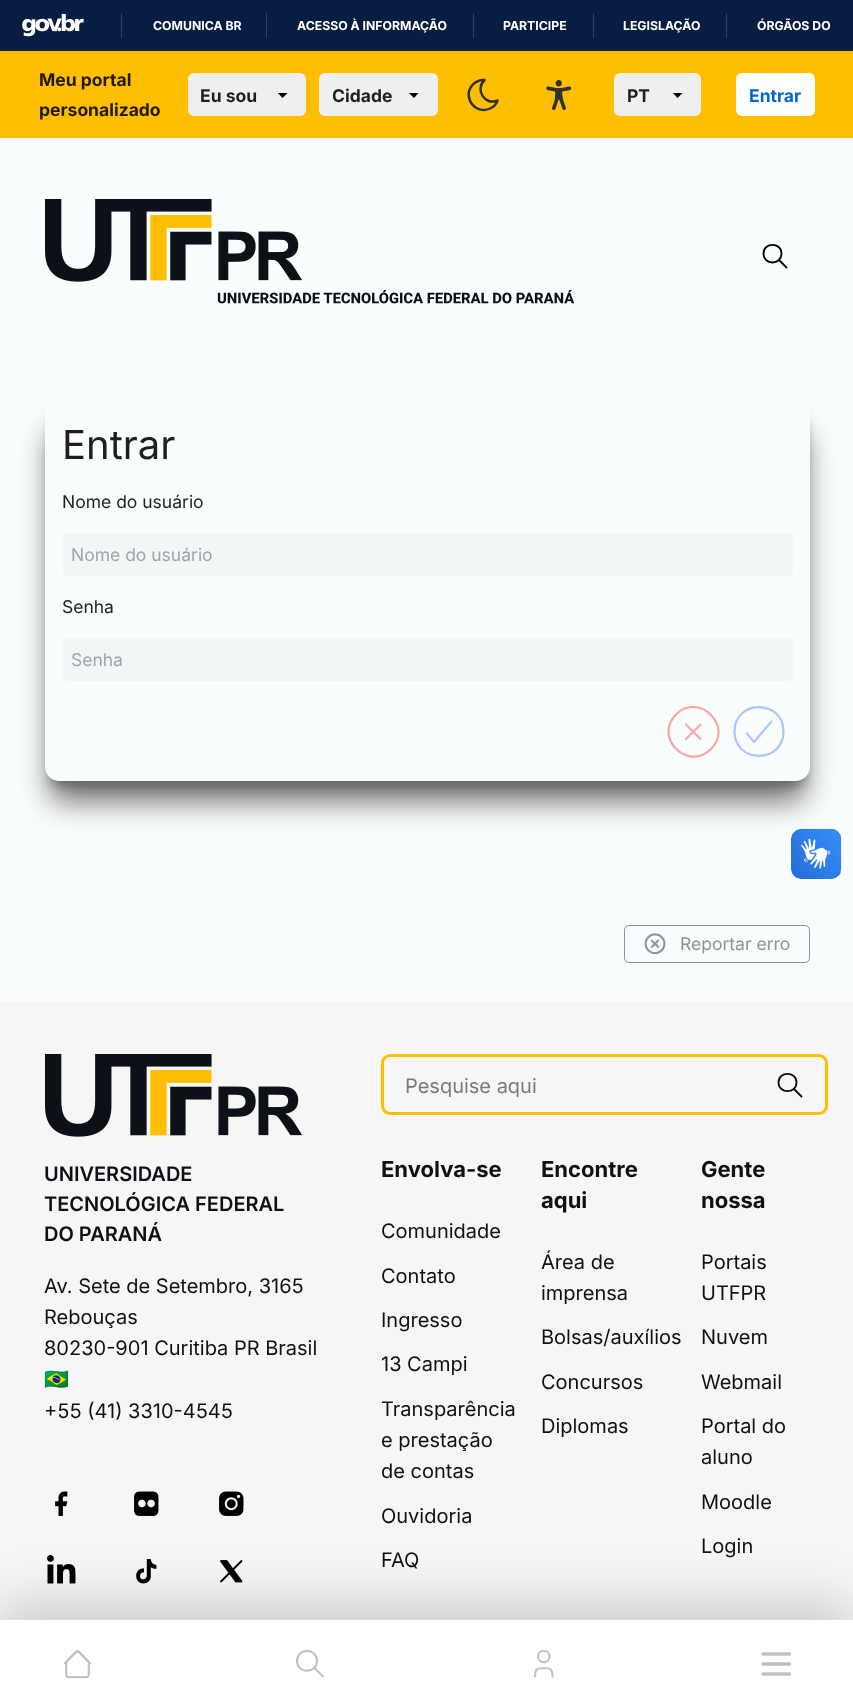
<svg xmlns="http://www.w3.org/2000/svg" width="853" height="1707">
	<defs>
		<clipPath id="clip1"><rect x="333" y="81" width="91" height="27" /></clipPath>
		<clipPath id="clip2"><path d="M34 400H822V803H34ZM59 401H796C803.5 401 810 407.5 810 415V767C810 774.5 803.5 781 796 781H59C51.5 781 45 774.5 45 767V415C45 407.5 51.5 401 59 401Z" clip-rule="evenodd" /></clipPath>
		<clipPath id="clip3"><path d="M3 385H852V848H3ZM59 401H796C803.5 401 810 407.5 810 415V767C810 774.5 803.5 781 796 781H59C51.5 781 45 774.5 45 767V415C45 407.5 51.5 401 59 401Z" clip-rule="evenodd" /></clipPath>
	</defs>
	<rect width="100%" height="100%" fill="#FAFDFD" />
	<rect x="0" y="0" width="853" height="51" fill="#071D41" />
	<image x="22" y="14" width="62" height="23" href="assets/img1.png" />
	<rect x="121" y="13" width="1" height="25" fill="#32425B" />
	<text x="153" y="30" font-family="Inter" font-size="12.25" font-weight="700" fill="#FFFFFF">COMUNICA BR</text>
	<rect x="266" y="13" width="1" height="25" fill="#32425B" />
	<text x="297" y="30" font-family="Inter" font-size="12.25" font-weight="700" fill="#FFFFFF">ACESSO À INFORMAÇÃO</text>
	<rect x="473" y="13" width="1" height="25" fill="#32425B" />
	<text x="503" y="30" font-family="Inter" font-size="12.25" font-weight="700" fill="#FFFFFF">PARTICIPE</text>
	<rect x="593" y="13" width="1" height="25" fill="#32425B" />
	<text x="623" y="30" font-family="Inter" font-size="12.25" font-weight="700" fill="#FFFFFF">LEGISLAÇÃO</text>
	<rect x="726" y="13" width="1" height="25" fill="#32425B" />
	<text x="757" y="30" font-family="Inter" font-size="12.25" font-weight="700" fill="#FFFFFF">ÓRGÃOS DO</text>
	<rect x="0" y="51" width="853" height="87" fill="#FFBE00" />
	<g font-family="Inter" font-size="17.5" font-weight="700" fill="#211900">
		<text x="39" y="86">Meu portal</text>
		<text x="39" y="116">personalizado</text>
	</g>
	<rect x="188" y="73" width="118" height="43" rx="6" fill="#EFEFEF" />
	<path d="M278 93L282.5 98L287.5 93" fill="#000000" />
	<text x="200" y="102" font-family="Inter" font-size="17.5" font-weight="700" fill="#1F1F1F">Eu sou</text>
	<rect x="319" y="73" width="119" height="43" rx="6" fill="#EFEFEF" />
	<path d="M409 93L414 98L418.5 93" fill="#000000" />
	<g clip-path="url(#clip1)">
		<text x="332" y="102" font-family="Inter" font-size="17.5" font-weight="700" fill="#1F1F1F">Cidade</text>
	</g>
	<path d="M484 80H484.5C474.5 89.5 485 106 497.5 100.5C496.5 104 494 106.5 491 108C476.5 116 462 98 472 85.5C475 82 479.5 80 484 80Z" fill="none" stroke="#2E3132" stroke-width="2.5" stroke-linecap="round" stroke-linejoin="round" />
	<image x="546" y="80" width="26" height="30" href="assets/img2.png" />
	<rect x="614" y="73" width="87" height="43" rx="6" fill="#EFEFEF" />
	<path d="M673 93L677.5 98L682.5 93" fill="#000000" />
	<text x="627" y="102" font-family="Inter" font-size="17.5" font-weight="700" fill="#1F1F1F">PT</text>
	<rect x="736" y="73" width="79" height="43" rx="6" fill="#FFFFFF" />
	<text x="749" y="102" font-family="Inter" font-size="17.5" font-weight="700" fill="#0169CD">Entrar</text>
	<image x="45" y="199" width="530" height="105" href="assets/img3.png" />
	<path d="M786.5 267.5L779 260M763.5 253.5C763.5 265.5 781.5 265.5 781.5 253.5C781.5 242 763.5 242 763.5 253.5Z" fill="none" stroke="#000000" stroke-width="1.8" stroke-linecap="round" stroke-linejoin="round" />
	<rect x="0" y="1001" width="853" height="619" fill="#F6F6F6" />
	<image x="47" y="1555" width="29" height="29" href="assets/img10.png" />
	<image x="136" y="1559" width="21" height="25" href="assets/img11.png" />
	<image x="220" y="1560" width="23" height="23" href="assets/img12.png" />
	<rect x="0" y="1608" width="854" height="87" fill="#000000" fill-opacity="0.2" filter="blur(28px)" />
	<rect x="0" y="1620" width="853" height="87" fill="#FFFFFF" />
	<image x="63" y="1650" width="29" height="29" href="assets/img4.png" />
	<path d="M323 1676.5L314.5 1668M297 1661C297 1674 317 1674 317 1661C317 1647.5 297 1647.5 297 1661Z" fill="none" stroke="#C1C1C1" stroke-width="2.1" stroke-linecap="round" stroke-linejoin="round" />
	<path d="M535 1676.5C535 1669.5 536.5 1668 544 1668C551 1668 552.5 1669.5 552.5 1676.5M538 1656.5C538 1664 549.5 1664 549.5 1656.5C549.5 1649 538 1649 538 1656.5Z" fill="none" stroke="#C1C1C1" stroke-width="2.1" stroke-linecap="round" stroke-linejoin="round" />
	<path d="M763 1674H789.5M763 1664H789.5M763 1654H789.5" fill="none" stroke="#C1C1C1" stroke-width="3.3" stroke-linecap="round" />
	<g clip-path="url(#clip2)">
		<rect x="53" y="419" width="750" height="365" rx="6" fill="#656565" filter="blur(6px)" />
	</g>
	<g clip-path="url(#clip3)">
		<rect x="51" y="433" width="753" height="367" rx="8" fill="#656565" filter="blur(15.5px)" />
	</g>
	<text x="62" y="459" font-family="Inter" font-size="40" fill="#1F1F1F">Entrar</text>
	<text x="62" y="508" font-family="Inter" font-size="17.5" fill="#1F1F1F">Nome do usuário</text>
	<rect x="63" y="533" width="730" height="43" rx="5" fill="#F3F6F7" />
	<text x="71" y="561" font-family="Inter" font-size="17.5" fill="#9CA3AF">Nome do usuário</text>
	<text x="62" y="613" font-family="Inter" font-size="17.5" fill="#1F1F1F">Senha</text>
	<rect x="63" y="638" width="730" height="43" rx="5" fill="#F3F6F7" />
	<text x="71" y="666" font-family="Inter" font-size="17.5" fill="#9CA3AF">Senha</text>
	<path d="M711 749C734 726.5 699 691.5 676 714.5C653 737.5 688 772 711 749Z" fill="none" stroke="#FCA5A5" stroke-width="2.2" />
	<path d="M700.5 724.5L686 739M700.5 739L686 724.5" fill="none" stroke="#FCA5A5" stroke-width="2.2" stroke-linecap="round" stroke-linejoin="round" />
	<path d="M783.5 731.5C783.5 699 734.5 699 734.5 731.5C734.5 764 783.5 764 783.5 731.5Z" fill="none" stroke="#A9C7FF" stroke-width="2.2" />
	<path d="M771.5 721.5L754 742L747 733.5" fill="none" stroke="#A9C7FF" stroke-width="2.2" stroke-linecap="round" stroke-linejoin="round" />
	<rect x="624.5" y="925.5" width="185" height="37" rx="4.5" fill="none" stroke="#8D9199" />
	<image x="644" y="933" width="22" height="22" href="assets/img5.png" />
	<text x="680" y="950" font-family="Inter" font-size="17.5" fill="#8D9199">Reportar erro</text>
	<image x="45" y="1054" width="257" height="83" href="assets/img6.png" />
	<g font-family="Inter" font-size="20" font-weight="600" fill="#0D1117">
		<text x="44" y="1181">UNIVERSIDADE</text>
		<text x="44" y="1211">TECNOLÓGICA FEDERAL</text>
		<text x="44" y="1241">DO PARANÁ</text>
	</g>
	<g font-family="Inter" font-size="20" fill="#0D1117">
		<text x="44" y="1293">Av. Sete de Setembro, 3165</text>
		<text x="44" y="1324">Rebouças</text>
		<text x="44" y="1355">80230-901 Curitiba PR Brasil</text>
	</g>
	<text x="44" y="1386" font-family="Noto Color Emoji" font-size="20" fill="#0D1117">🇧🇷</text>
	<text x="44" y="1418" font-family="Inter" font-size="20" fill="#0D1117">+55 (41) 3310-4545</text>
	<image x="55" y="1491" width="13" height="25" href="assets/img7.png" />
	<image x="134" y="1491" width="25" height="25" href="assets/img8.png" />
	<image x="219" y="1491" width="25" height="25" href="assets/img9.png" />
	<rect x="382.5" y="1055.5" width="444" height="58" rx="7.5" fill="none" stroke="#FFBE00" stroke-width="3" />
	<text x="405" y="1093" font-family="Inter" font-size="20" fill="#7A7A7A">Pesquise aqui</text>
	<path d="M801.5 1096.5L794 1089M778.5 1082.5C778.5 1094 796.5 1094 796.5 1082.5C796.5 1071 778.5 1071 778.5 1082.5Z" fill="none" stroke="#0D1117" stroke-width="1.8" stroke-linecap="round" stroke-linejoin="round" />
	<text x="381" y="1177" font-family="Inter" font-size="22" font-weight="700" fill="#0D1117">Envolva-se</text>
	<g font-family="Inter" font-size="20" fill="#0D1117">
		<text x="381" y="1238">Comunidade</text>
		<text x="381" y="1283">Contato</text>
		<text x="381" y="1327">Ingresso</text>
		<text x="381" y="1371">13 Campi</text>
		<text x="381" y="1416">Transparência</text>
		<text x="381" y="1447">e prestação</text>
		<text x="381" y="1478">de contas</text>
		<text x="381" y="1523">Ouvidoria</text>
		<text x="381" y="1567">FAQ</text>
	</g>
	<g font-family="Inter" font-size="22" font-weight="700" fill="#0D1117">
		<text x="541" y="1177">Encontre</text>
		<text x="541" y="1208">aqui</text>
	</g>
	<g font-family="Inter" font-size="20" fill="#0D1117">
		<text x="541" y="1269">Área de</text>
		<text x="541" y="1300">imprensa</text>
		<text x="541" y="1344">Bolsas/auxílios</text>
		<text x="541" y="1389">Concursos</text>
		<text x="541" y="1433">Diplomas</text>
	</g>
	<g font-family="Inter" font-size="22" font-weight="700" fill="#0D1117">
		<text x="701" y="1177">Gente</text>
		<text x="701" y="1208">nossa</text>
	</g>
	<g font-family="Inter" font-size="20" fill="#0D1117">
		<text x="701" y="1269">Portais</text>
		<text x="701" y="1300">UTFPR</text>
		<text x="701" y="1344">Nuvem</text>
		<text x="701" y="1389">Webmail</text>
		<text x="701" y="1433">Portal do</text>
		<text x="701" y="1464">aluno</text>
		<text x="701" y="1509">Moodle</text>
		<text x="701" y="1553">Login</text>
	</g>
	<image x="791" y="828" width="51" height="51" href="assets/img13.png" />
	<image x="791" y="829" width="50" height="50" href="assets/img14.png" />
</svg>
